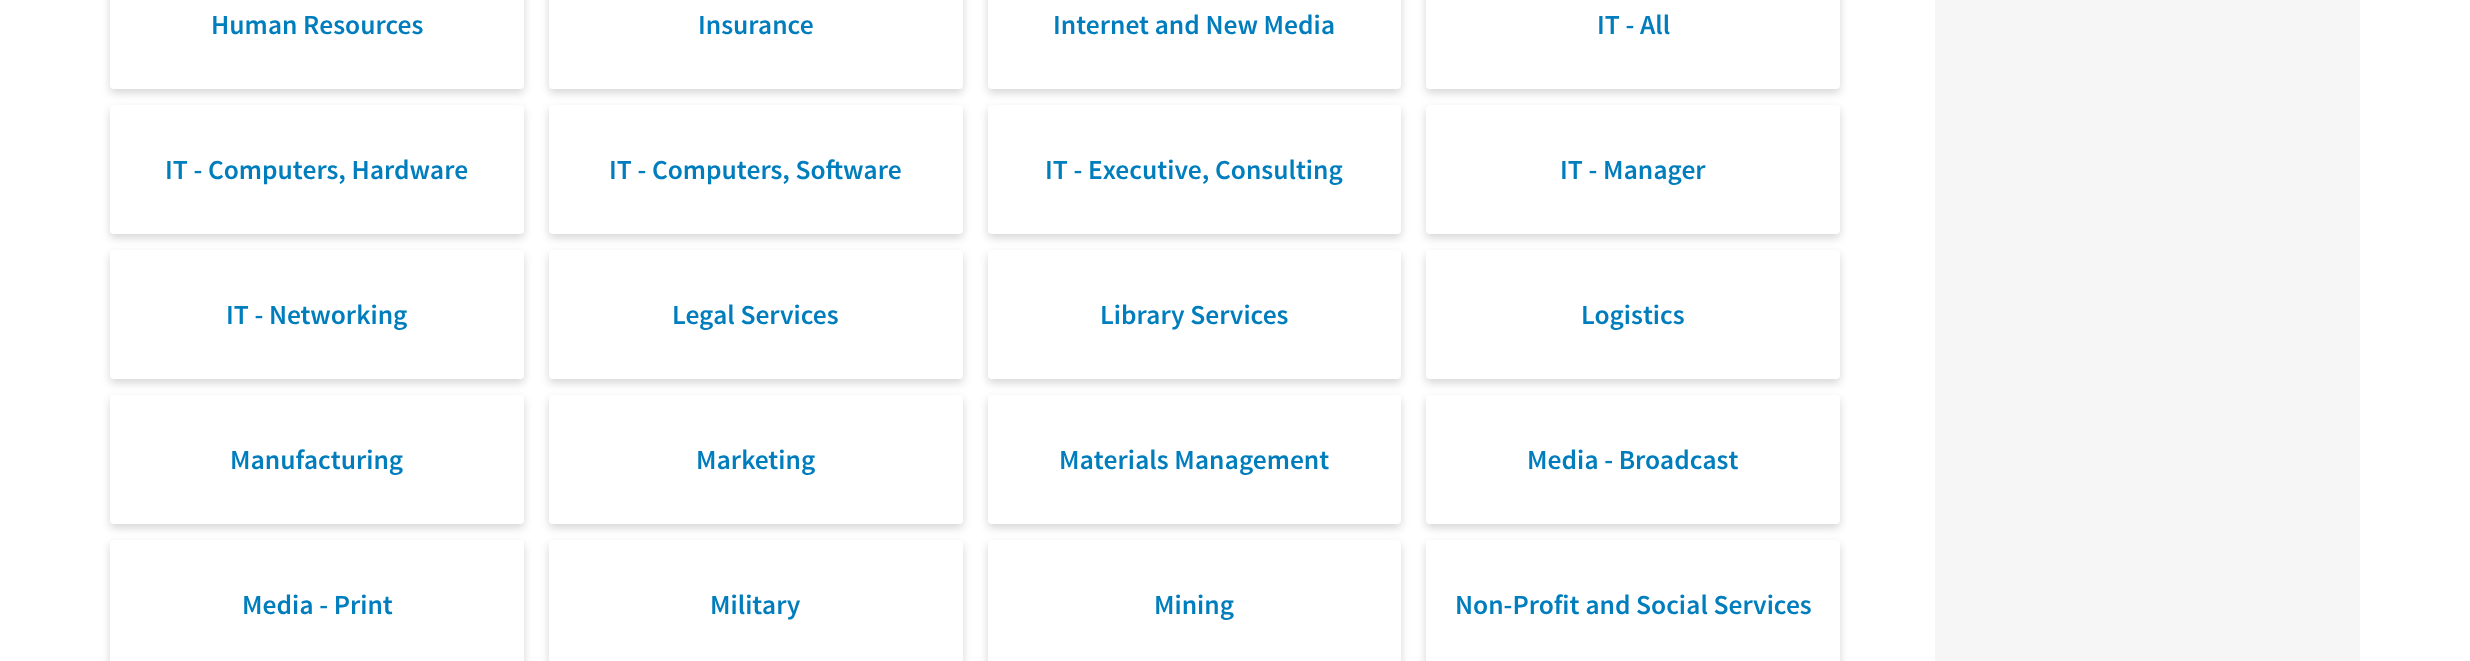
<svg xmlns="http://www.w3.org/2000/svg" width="2470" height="661">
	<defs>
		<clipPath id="clip1"><path d="M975 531H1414V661H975ZM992 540H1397C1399 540 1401 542 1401 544V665C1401 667 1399 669 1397 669H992C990 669 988 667 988 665V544C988 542 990 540 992 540Z" clip-rule="evenodd" /></clipPath>
	</defs>
	<rect width="100%" height="100%" fill="#FFFFFF" />
	<rect x="110" y="-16" width="414" height="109" rx="4" fill="#000000" fill-opacity="0.16" filter="blur(4px)" />
	<rect x="110" y="-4" width="414" height="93" rx="4" fill="#FFFFFF" />
	<text x="211" y="34" font-family="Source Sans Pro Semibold" font-size="27.5" font-weight="600" fill="#007DBC">Human Resources</text>
	<rect x="549" y="-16" width="414" height="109" rx="4" fill="#000000" fill-opacity="0.16" filter="blur(4px)" />
	<rect x="549" y="-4" width="414" height="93" rx="4" fill="#FFFFFF" />
	<text x="698" y="34" font-family="Source Sans Pro Semibold" font-size="27.5" font-weight="600" fill="#007DBC">Insurance</text>
	<rect x="988" y="-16" width="413" height="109" rx="4" fill="#000000" fill-opacity="0.16" filter="blur(4px)" />
	<rect x="988" y="-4" width="413" height="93" rx="4" fill="#FFFFFF" />
	<text x="1053" y="34" font-family="Source Sans Pro Semibold" font-size="27.5" font-weight="600" fill="#007DBC">Internet and New Media</text>
	<rect x="1426" y="-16" width="414" height="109" rx="4" fill="#000000" fill-opacity="0.16" filter="blur(4px)" />
	<rect x="1426" y="-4" width="414" height="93" rx="4" fill="#FFFFFF" />
	<text x="1597" y="34" font-family="Source Sans Pro Semibold" font-size="27.5" font-weight="600" fill="#007DBC">IT - All</text>
	<rect x="110" y="109" width="414" height="129" rx="4" fill="#000000" fill-opacity="0.16" filter="blur(4px)" />
	<rect x="110" y="105" width="414" height="129" rx="4" fill="#FFFFFF" />
	<text x="165" y="179" font-family="Source Sans Pro Semibold" font-size="27.5" font-weight="600" fill="#007DBC">IT - Computers, Hardware</text>
	<rect x="549" y="109" width="414" height="129" rx="4" fill="#000000" fill-opacity="0.16" filter="blur(4px)" />
	<rect x="549" y="105" width="414" height="129" rx="4" fill="#FFFFFF" />
	<text x="609" y="179" font-family="Source Sans Pro Semibold" font-size="27.5" font-weight="600" fill="#007DBC">IT - Computers, Software</text>
	<rect x="988" y="109" width="413" height="129" rx="4" fill="#000000" fill-opacity="0.16" filter="blur(4px)" />
	<rect x="988" y="105" width="413" height="129" rx="4" fill="#FFFFFF" />
	<text x="1045" y="179" font-family="Source Sans Pro Semibold" font-size="27.5" font-weight="600" fill="#007DBC">IT - Executive, Consulting</text>
	<rect x="1426" y="109" width="414" height="129" rx="4" fill="#000000" fill-opacity="0.16" filter="blur(4px)" />
	<rect x="1426" y="105" width="414" height="129" rx="4" fill="#FFFFFF" />
	<text x="1560" y="179" font-family="Source Sans Pro Semibold" font-size="27.5" font-weight="600" fill="#007DBC">IT - Manager</text>
	<rect x="110" y="254" width="414" height="129" rx="4" fill="#000000" fill-opacity="0.16" filter="blur(4px)" />
	<rect x="110" y="250" width="414" height="129" rx="4" fill="#FFFFFF" />
	<text x="226" y="324" font-family="Source Sans Pro Semibold" font-size="27.5" font-weight="600" fill="#007DBC">IT - Networking</text>
	<rect x="549" y="254" width="414" height="129" rx="4" fill="#000000" fill-opacity="0.16" filter="blur(4px)" />
	<rect x="549" y="250" width="414" height="129" rx="4" fill="#FFFFFF" />
	<text x="672" y="324" font-family="Source Sans Pro Semibold" font-size="27.5" font-weight="600" fill="#007DBC">Legal Services</text>
	<rect x="988" y="254" width="413" height="129" rx="4" fill="#000000" fill-opacity="0.16" filter="blur(4px)" />
	<rect x="988" y="250" width="413" height="129" rx="4" fill="#FFFFFF" />
	<text x="1100" y="324" font-family="Source Sans Pro Semibold" font-size="27.5" font-weight="600" fill="#007DBC">Library Services</text>
	<rect x="1426" y="254" width="414" height="129" rx="4" fill="#000000" fill-opacity="0.16" filter="blur(4px)" />
	<rect x="1426" y="250" width="414" height="129" rx="4" fill="#FFFFFF" />
	<text x="1581" y="324" font-family="Source Sans Pro Semibold" font-size="27.5" font-weight="600" fill="#007DBC">Logistics</text>
	<rect x="110" y="399" width="414" height="129" rx="4" fill="#000000" fill-opacity="0.16" filter="blur(4px)" />
	<rect x="110" y="395" width="414" height="129" rx="4" fill="#FFFFFF" />
	<text x="230" y="469" font-family="Source Sans Pro Semibold" font-size="27.5" font-weight="600" fill="#007DBC">Manufacturing</text>
	<rect x="549" y="399" width="414" height="129" rx="4" fill="#000000" fill-opacity="0.16" filter="blur(4px)" />
	<rect x="549" y="395" width="414" height="129" rx="4" fill="#FFFFFF" />
	<text x="696" y="469" font-family="Source Sans Pro Semibold" font-size="27.5" font-weight="600" fill="#007DBC">Marketing</text>
	<rect x="988" y="399" width="413" height="129" rx="4" fill="#000000" fill-opacity="0.16" filter="blur(4px)" />
	<rect x="988" y="395" width="413" height="129" rx="4" fill="#FFFFFF" />
	<text x="1059" y="469" font-family="Source Sans Pro Semibold" font-size="27.5" font-weight="600" fill="#007DBC">Materials Management</text>
	<rect x="1426" y="399" width="414" height="129" rx="4" fill="#000000" fill-opacity="0.16" filter="blur(4px)" />
	<rect x="1426" y="395" width="414" height="129" rx="4" fill="#FFFFFF" />
	<text x="1527" y="469" font-family="Source Sans Pro Semibold" font-size="27.5" font-weight="600" fill="#007DBC">Media - Broadcast</text>
	<rect x="110" y="544" width="414" height="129" rx="4" fill="#000000" fill-opacity="0.16" filter="blur(4px)" />
	<rect x="110" y="540" width="414" height="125" rx="4" fill="#FFFFFF" />
	<text x="242" y="614" font-family="Source Sans Pro Semibold" font-size="27.5" font-weight="600" fill="#007DBC">Media - Print</text>
	<rect x="549" y="544" width="414" height="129" rx="4" fill="#000000" fill-opacity="0.16" filter="blur(4px)" />
	<rect x="549" y="540" width="414" height="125" rx="4" fill="#FFFFFF" />
	<text x="710" y="614" font-family="Source Sans Pro Semibold" font-size="27.5" font-weight="600" fill="#007DBC">Military</text>
	<g clip-path="url(#clip1)">
		<rect x="988" y="544" width="413" height="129" rx="4" fill="#000000" fill-opacity="0.16" filter="blur(4px)" />
	</g>
	<text x="1154" y="614" font-family="Source Sans Pro Semibold" font-size="27.5" font-weight="600" fill="#007DBC">Mining</text>
	<rect x="1426" y="544" width="414" height="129" rx="4" fill="#000000" fill-opacity="0.16" filter="blur(4px)" />
	<rect x="1426" y="540" width="414" height="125" rx="4" fill="#FFFFFF" />
	<text x="1455" y="614" font-family="Source Sans Pro Semibold" font-size="27.5" font-weight="600" fill="#007DBC">Non-Profit and Social Services</text>
	<rect x="1935" y="0" width="425" height="661" fill="#F6F6F6" />
</svg>
